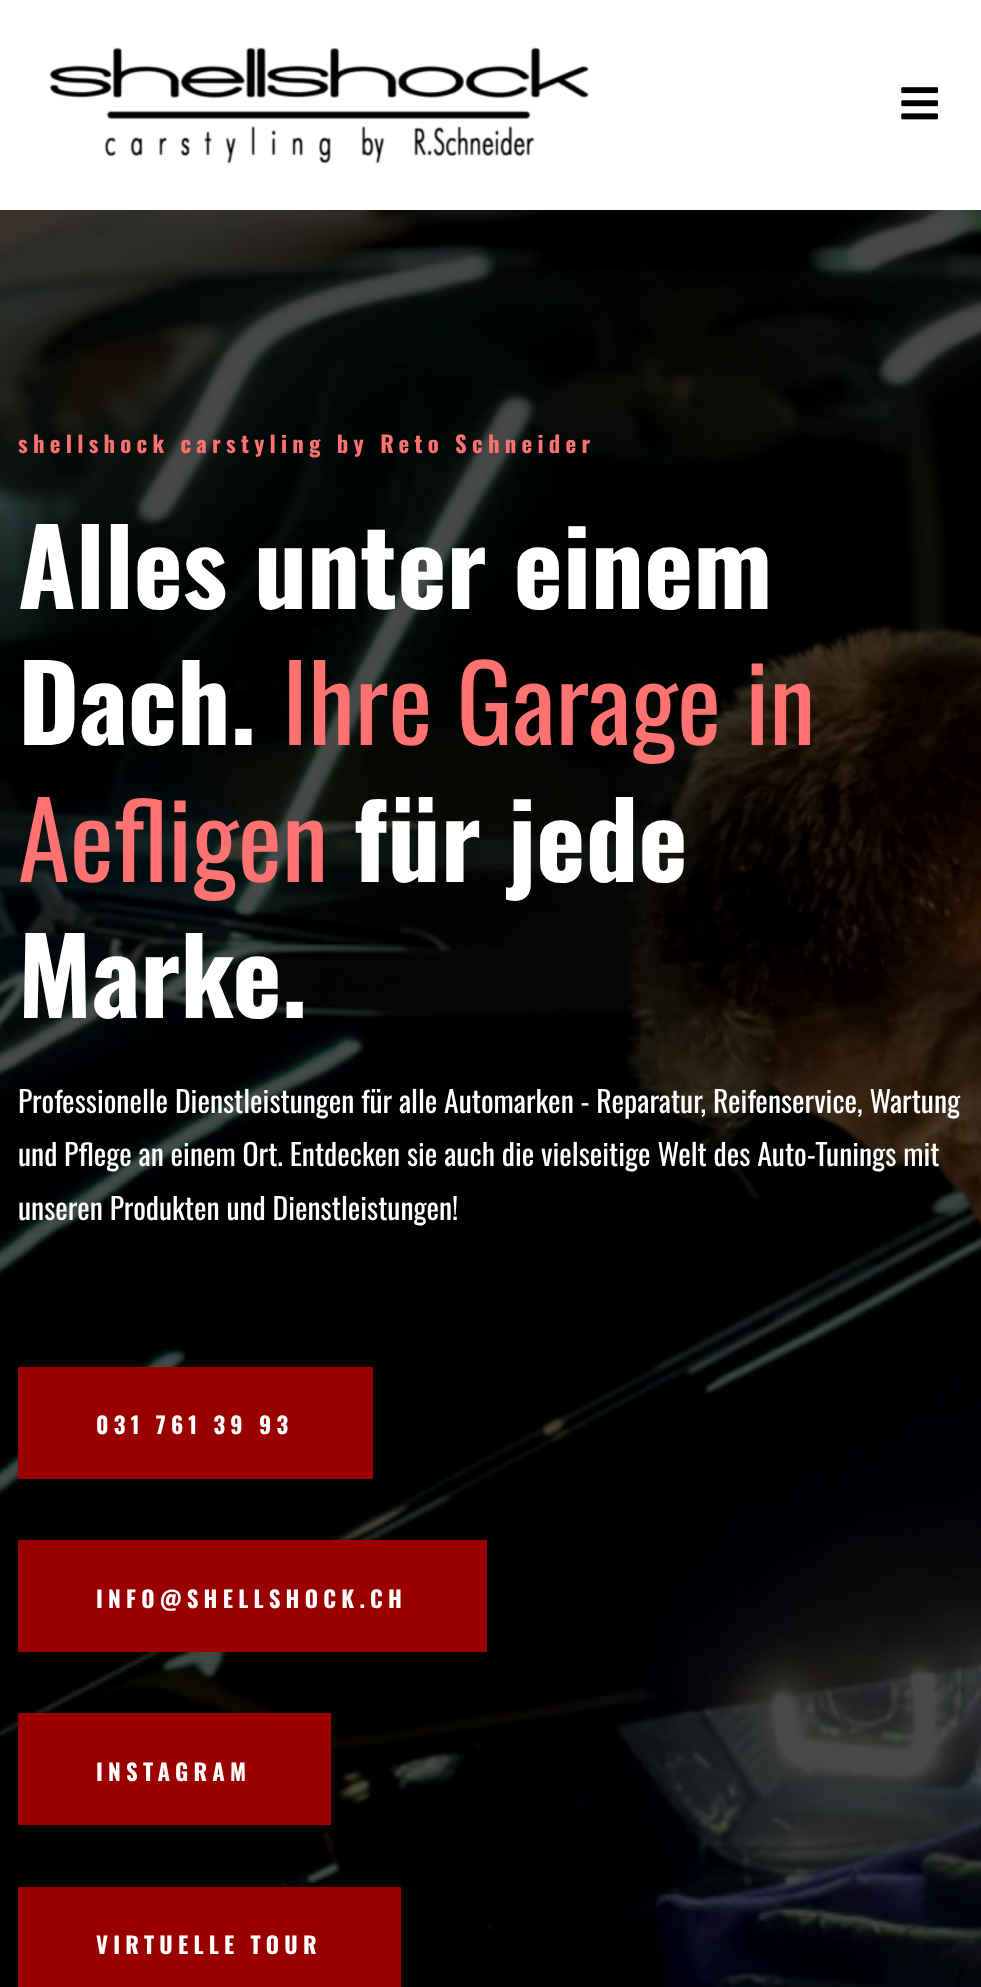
<svg xmlns="http://www.w3.org/2000/svg" width="981" height="1987">
	<rect width="100%" height="100%" fill="#FFFFFF" />
	<image x="49" y="47" width="540" height="117" href="assets/img1.png" />
	<image x="901" y="87" width="37" height="33" href="assets/img2.png" />
	<rect x="0" y="210" width="981" height="1777" fill="#000000" />
	<image x="0" y="210" width="981" height="1777" href="assets/img3.png" />
	<text x="18" y="453" font-family="Oswald" font-size="22.75" font-weight="700" letter-spacing="5.25" fill="#FF7272">shellshock carstyling by Reto Schneider</text>
	<g font-family="Oswald" font-size="105" font-weight="700" fill="#FFFFFF">
		<text x="18" y="609">Alles unter einem</text>
		<text x="18" y="745">Dach.</text>
	</g>
	<g font-family="Oswald" font-size="105" fill="#FF7272">
		<text x="282" y="745">Ihre Garage in</text>
		<text x="18" y="882">Aefligen</text>
	</g>
	<g font-family="Oswald" font-size="105" font-weight="700" fill="#FFFFFF">
		<text x="354" y="882">für jede</text>
		<text x="18" y="1018">Marke.</text>
	</g>
	<g font-family="Oswald" font-size="29.75" fill="#FFFFFF">
		<text x="18" y="1113">Professionelle Dienstleistungen für alle Automarken - Reparatur, Reifenservice, Wartung</text>
		<text x="18" y="1166">und Pflege an einem Ort. Entdecken sie auch die vielseitige Welt des Auto-Tunings mit</text>
		<text x="18" y="1220">unseren Produkten und Dienstleistungen!</text>
	</g>
	<rect x="18" y="1367" width="355" height="112" fill="#9B0000" />
	<text x="96" y="1434" font-family="Oswald" font-size="22.75" font-weight="700" letter-spacing="5.25" fill="#FFFFFF">031 761 39 93</text>
	<rect x="18" y="1540" width="469" height="112" fill="#9B0000" />
	<text x="96" y="1608" font-family="Oswald" font-size="22.75" font-weight="700" letter-spacing="5.25" fill="#FFFFFF">INFO@SHELLSHOCK.CH</text>
	<rect x="18" y="1713" width="313" height="112" fill="#9B0000" />
	<text x="96" y="1781" font-family="Oswald" font-size="22.75" font-weight="700" letter-spacing="5.25" fill="#FFFFFF">INSTAGRAM</text>
	<rect x="18" y="1887" width="383" height="100" fill="#9B0000" />
	<text x="96" y="1954" font-family="Oswald" font-size="22.75" font-weight="700" letter-spacing="5.25" fill="#FFFFFF">VIRTUELLE TOUR</text>
</svg>
